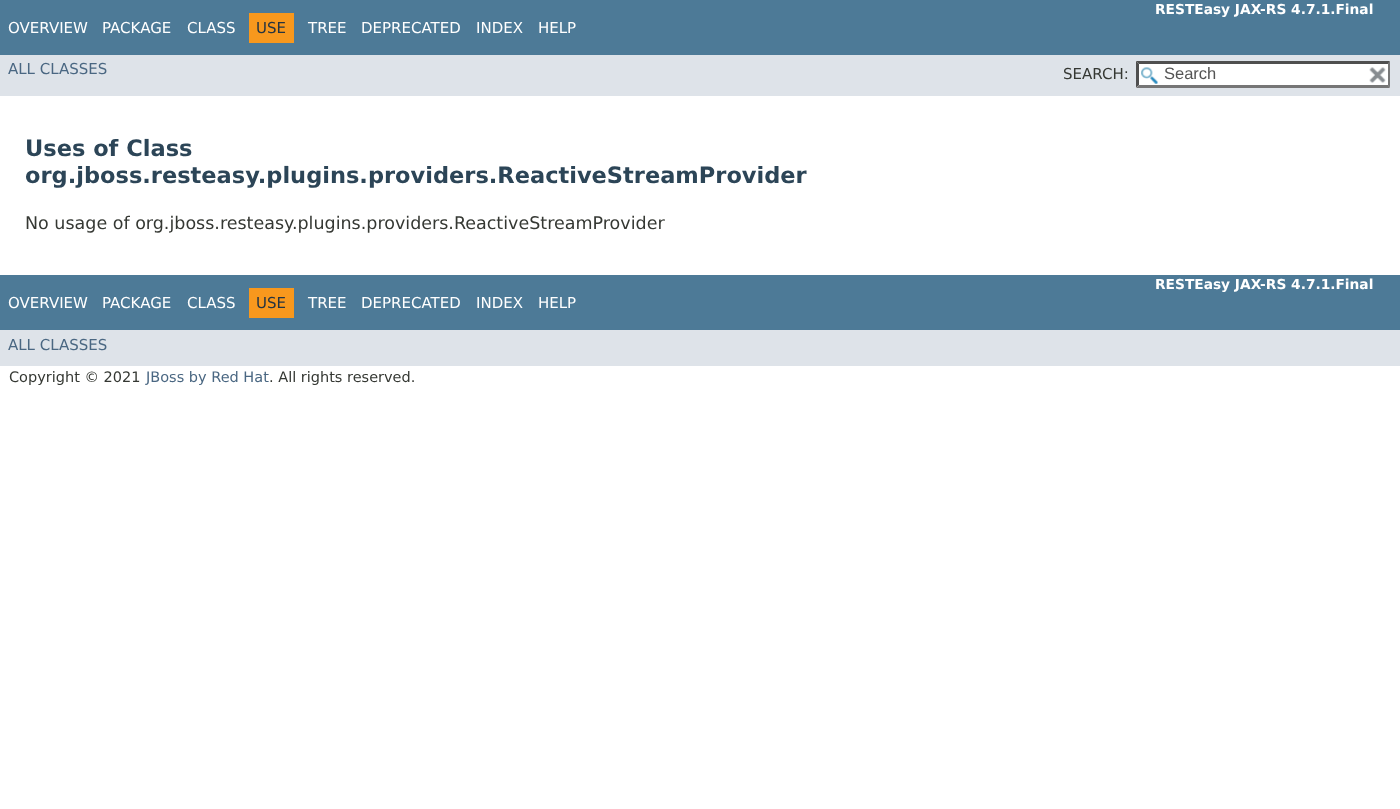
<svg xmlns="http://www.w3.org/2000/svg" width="1400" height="809">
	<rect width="100%" height="100%" fill="#FFFFFF" />
	<rect x="0" y="0" width="1400" height="55" fill="#4D7A97" />
	<text x="1155" y="14" font-family="DejaVu Sans" font-size="13.75" font-weight="700" fill="#FFFFFF">RESTEasy JAX-RS 4.7.1.Final</text>
	<g font-family="DejaVu Sans" font-size="15" fill="#FFFFFF">
		<text x="8" y="33">OVERVIEW</text>
		<text x="102" y="33">PACKAGE</text>
		<text x="187" y="33">CLASS</text>
	</g>
	<rect x="249" y="13" width="45" height="30" fill="#F8981D" />
	<text x="256" y="33" font-family="DejaVu Sans" font-size="15" fill="#253441">USE</text>
	<g font-family="DejaVu Sans" font-size="15" fill="#FFFFFF">
		<text x="308" y="33">TREE</text>
		<text x="361" y="33">DEPRECATED</text>
		<text x="476" y="33">INDEX</text>
		<text x="538" y="33">HELP</text>
	</g>
	<rect x="0" y="55" width="1400" height="41" fill="#DEE3E9" />
	<text x="8" y="74" font-family="DejaVu Sans" font-size="15" fill="#4A6782">ALL CLASSES</text>
	<text x="1063" y="79" font-family="DejaVu Sans" font-size="15" fill="#353833">SEARCH:</text>
	<rect x="1136" y="61" width="254" height="27" fill="#FFFFFF" />
	<image x="1141" y="67" width="17" height="17" href="assets/img1.png" />
	<path d="M1136 61H1390L1388 64H1139Z" fill="#4F4F4F" />
	<path d="M1390 61V87.5L1387.5 85V64Z" fill="#767676" />
	<path d="M1390 88H1136L1139 85H1388Z" fill="#767676" />
	<path d="M1136 87.5V61L1139 64V85Z" fill="#4F4F4F" />
	<text x="1164" y="79" font-family="Liberation Sans" font-size="16.5" fill="#545454">Search</text>
	<rect x="1387" y="64" width="1" height="21" fill="#FFFFFF" />
	<image x="1369" y="67" width="17" height="16" href="assets/img2.png" />
	<g font-family="DejaVu Sans" font-size="22.5" font-weight="700" fill="#2C4557">
		<text x="25" y="156">Uses of Class</text>
		<text x="25" y="183">org.jboss.resteasy.plugins.providers.ReactiveStreamProvider</text>
	</g>
	<text x="25" y="229" font-family="DejaVu Sans" font-size="17.5" fill="#353833">No usage of org.jboss.resteasy.plugins.providers.ReactiveStreamProvider</text>
	<rect x="0" y="275" width="1400" height="55" fill="#4D7A97" />
	<text x="1155" y="289" font-family="DejaVu Sans" font-size="13.75" font-weight="700" fill="#FFFFFF">RESTEasy JAX-RS 4.7.1.Final</text>
	<g font-family="DejaVu Sans" font-size="15" fill="#FFFFFF">
		<text x="8" y="308">OVERVIEW</text>
		<text x="102" y="308">PACKAGE</text>
		<text x="187" y="308">CLASS</text>
	</g>
	<rect x="249" y="288" width="45" height="30" fill="#F8981D" />
	<text x="256" y="308" font-family="DejaVu Sans" font-size="15" fill="#253441">USE</text>
	<g font-family="DejaVu Sans" font-size="15" fill="#FFFFFF">
		<text x="308" y="308">TREE</text>
		<text x="361" y="308">DEPRECATED</text>
		<text x="476" y="308">INDEX</text>
		<text x="538" y="308">HELP</text>
	</g>
	<rect x="0" y="330" width="1400" height="36" fill="#DEE3E9" />
	<text x="8" y="350" font-family="DejaVu Sans" font-size="15" fill="#4A6782">ALL CLASSES</text>
	<text x="9" y="382" font-family="DejaVu Sans" font-size="14.5" fill="#353833">Copyright © 2021</text>
	<text x="146" y="382" font-family="DejaVu Sans" font-size="14.5" fill="#4A6782">JBoss by Red Hat</text>
	<text x="269" y="382" font-family="DejaVu Sans" font-size="14.5" fill="#353833">. All rights reserved.</text>
</svg>
